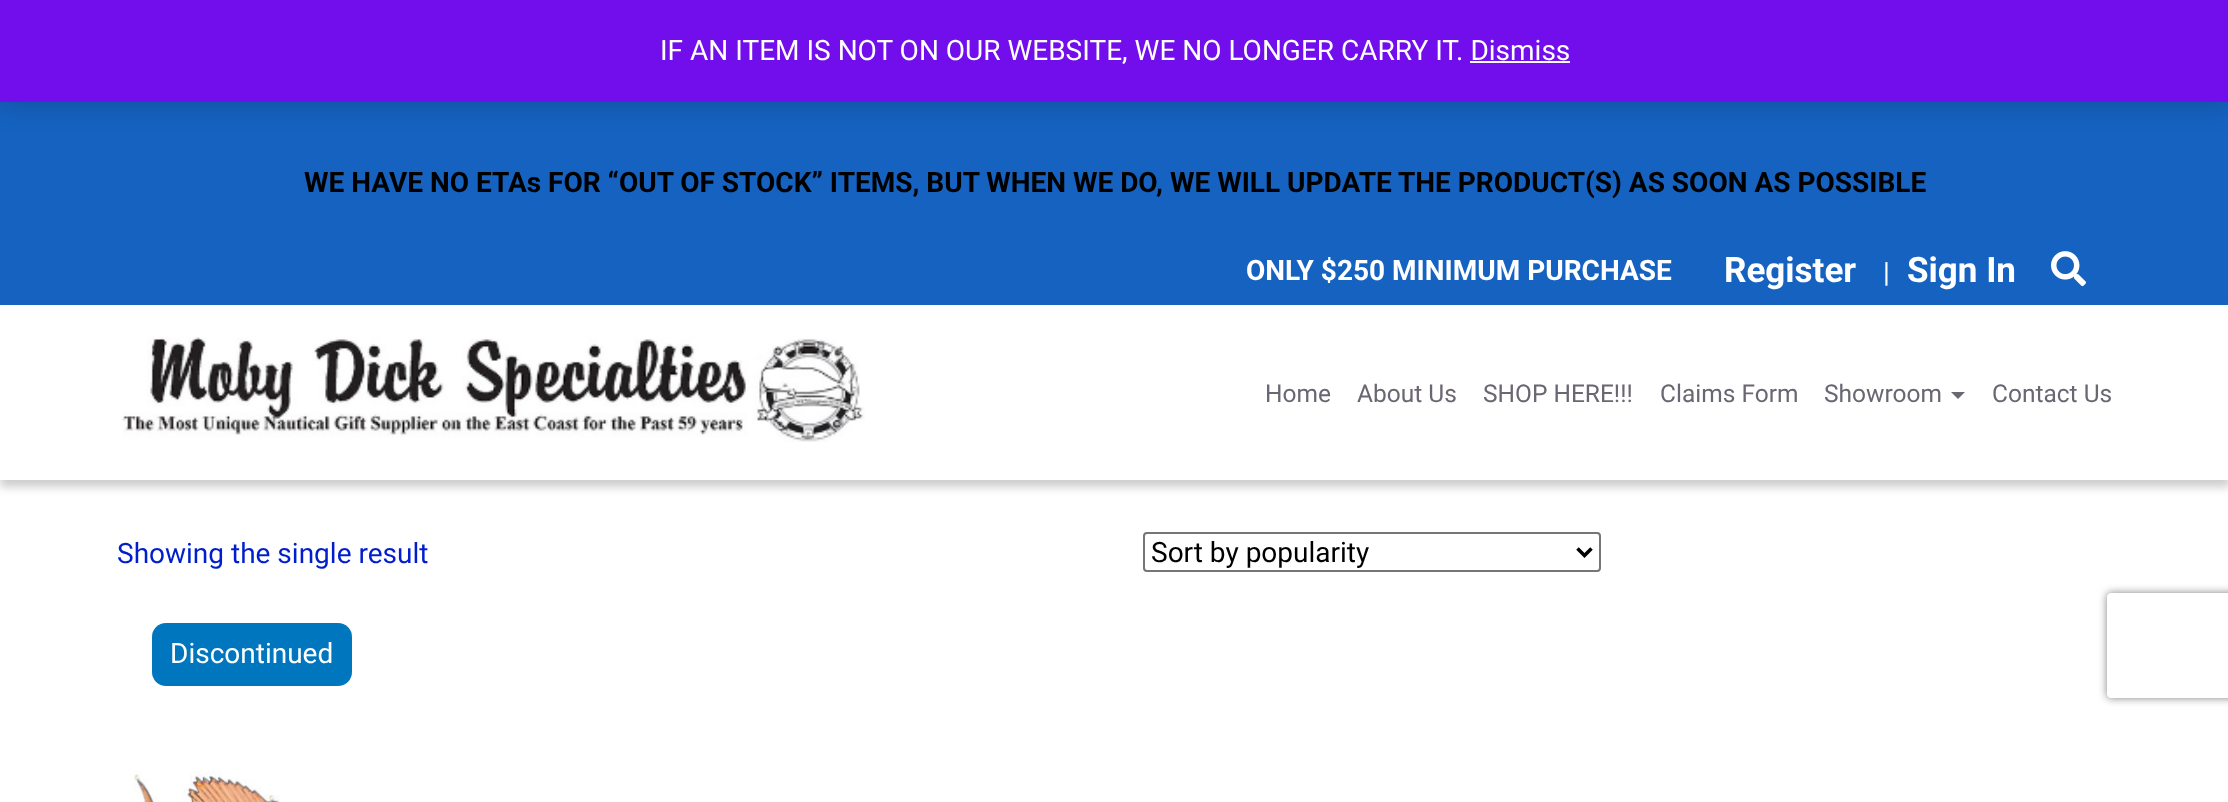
<svg xmlns="http://www.w3.org/2000/svg" width="2228" height="802">
	<defs>
		<clipPath id="clip1"><path d="M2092 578H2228V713H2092ZM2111 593H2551C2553 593 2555 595 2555 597V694C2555 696 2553 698 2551 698H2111C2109 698 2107 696 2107 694V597C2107 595 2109 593 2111 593Z" clip-rule="evenodd" /></clipPath>
	</defs>
	<rect width="100%" height="100%" fill="#FFFFFF" />
	<rect x="0" y="102" width="2228" height="203" fill="#1562C1" />
	<rect x="0" y="2" width="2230" height="101" fill="#000000" fill-opacity="0.2" filter="blur(14px)" />
	<rect x="0" y="0" width="2228" height="102" fill="#720EEC" />
	<text x="660" y="60" font-family="Roboto" font-size="28" fill="#FFFFFF">IF AN ITEM IS NOT ON OUR WEBSITE, WE NO LONGER CARRY IT. Dismiss</text>
	<rect x="1470" y="61" width="100" height="2" fill="#FCFBFE" />
	<text x="304" y="192" font-family="Roboto" font-size="28" font-weight="700" fill="#000000">WE HAVE NO ETAs FOR “OUT OF STOCK” ITEMS, BUT WHEN WE DO, WE WILL UPDATE THE PRODUCT(S) AS SOON AS POSSIBLE</text>
	<text x="1246" y="280" font-family="Roboto" font-size="28" font-weight="700" fill="#FFFFFF">ONLY $250 MINIMUM PURCHASE</text>
	<text x="1724" y="282" font-family="Roboto" font-size="35" font-weight="700" fill="#FFFFFF">Register</text>
	<text x="1883" y="282" font-family="Roboto" font-size="28" fill="#FFFFFF">|</text>
	<text x="1907" y="282" font-family="Roboto" font-size="35" font-weight="700" fill="#FFFFFF">Sign In</text>
	<image x="2051" y="251" width="35" height="36" href="assets/img1.png" />
	<rect x="0" y="312" width="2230" height="175" fill="#000000" fill-opacity="0.2" filter="blur(5px)" />
	<rect x="0" y="305" width="2228" height="175" fill="#FFFFFF" />
	<image x="122" y="337" width="743" height="105" href="assets/img2.png" />
	<g font-family="Roboto" font-size="24.5" fill="#6B6772">
		<text x="1265" y="402">Home</text>
		<text x="1357" y="402">About Us</text>
		<text x="1483" y="402">SHOP HERE!!!</text>
		<text x="1660" y="402">Claims Form</text>
		<text x="1824" y="402">Showroom</text>
	</g>
	<path d="M1951 392H1965L1958 399Z" fill="#6B6772" />
	<text x="1992" y="402" font-family="Roboto" font-size="24.5" fill="#6B6772">Contact Us</text>
	<text x="117" y="563" font-family="Roboto" font-size="28" fill="#001ECC">Showing the single result</text>
	<rect x="1144" y="533" width="456" height="38" rx="3" fill="none" stroke="#767676" stroke-width="2" />
	<path d="M1577.5 548.5L1584.5 555.5L1591.5 548.5" fill="none" stroke="#000000" stroke-width="3.5" />
	<text x="1151" y="562" font-family="Roboto" font-size="28" fill="#000000">Sort by popularity</text>
	<rect x="152" y="623" width="200" height="63" rx="14" fill="#0076BE" />
	<text x="170" y="663" font-family="Roboto" font-size="28" fill="#FFFFFF">Discontinued</text>
	<image x="133" y="770" width="147" height="32" href="assets/img3.png" />
	<g clip-path="url(#clip1)">
		<rect x="2107" y="593" width="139" height="105" rx="4" fill="#808080" filter="blur(4.5px)" />
	</g>
</svg>
